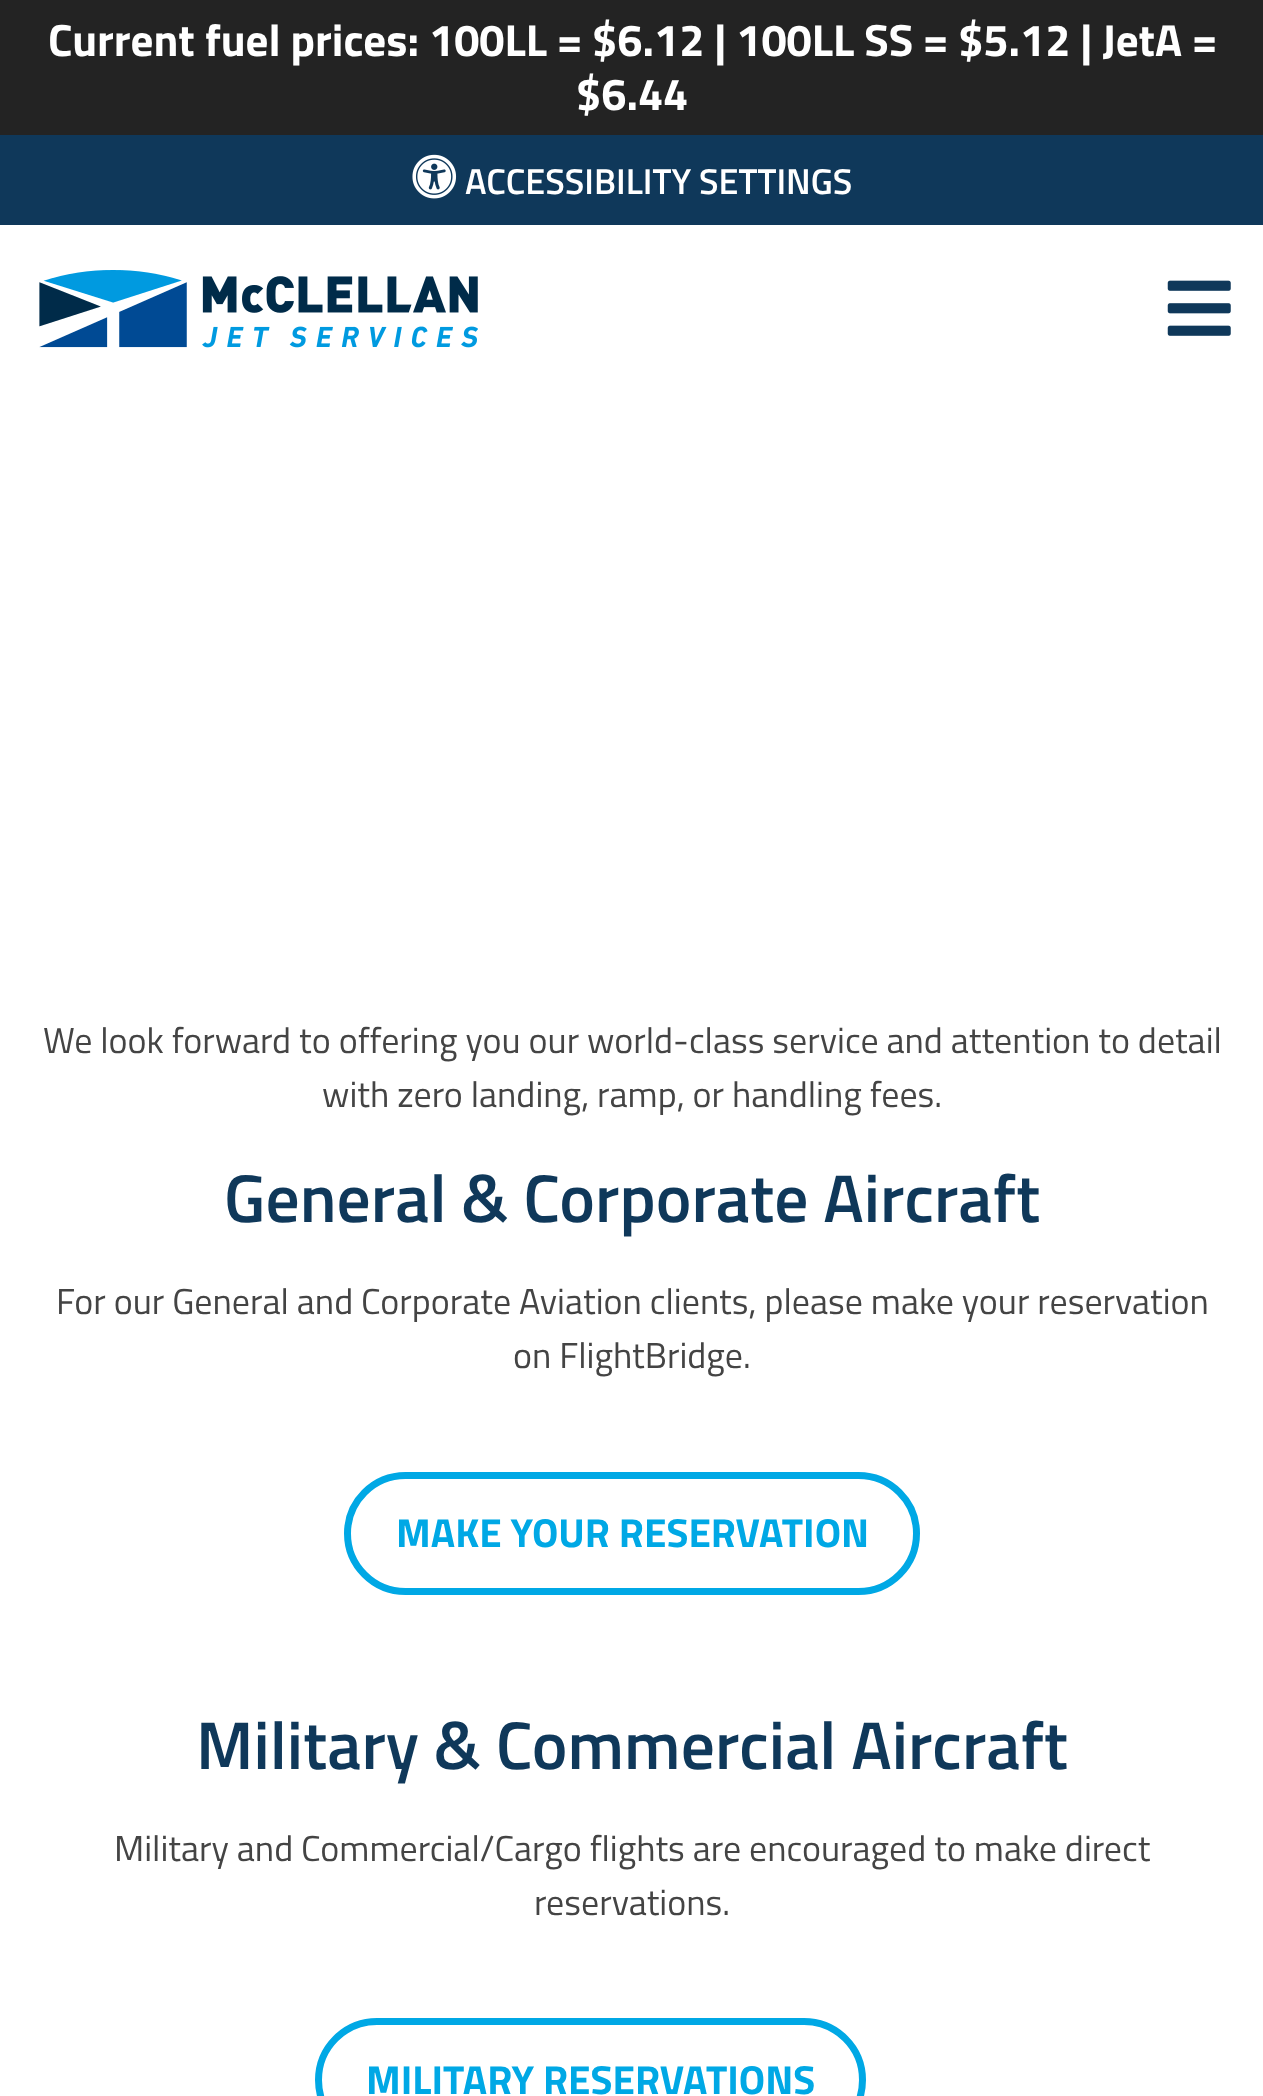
<svg xmlns="http://www.w3.org/2000/svg" width="1263" height="2096">
	<rect width="100%" height="100%" fill="#FFFFFF" />
	<rect x="0" y="0" width="1263" height="135" fill="#232323" />
	<g font-family="Titillium Web" font-size="45" font-weight="700" fill="#FFFFFF">
		<text x="48" y="56">Current fuel prices: 100LL = $6.12 | 100LL SS = $5.12 | JetA =</text>
		<text x="576" y="110">$6.44</text>
	</g>
	<rect x="0" y="135" width="1263" height="90" fill="#0F385A" />
	<image x="412" y="154" width="45" height="45" href="assets/img1.png" />
	<text x="465" y="194" font-family="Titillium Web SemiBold" font-size="36" font-weight="600" fill="#FFFFFF">ACCESSIBILITY SETTINGS</text>
	<image x="39" y="270" width="439" height="78" href="assets/img2.png" />
	<image x="1167" y="280" width="64" height="56" href="assets/img3.png" />
	<g font-family="Titillium Web" font-size="36" fill="#444444">
		<text x="43" y="1053">We look forward to offering you our world-class service and attention to detail</text>
		<text x="322" y="1107">with zero landing, ramp, or handling fees.</text>
	</g>
	<text x="224" y="1222" font-family="Titillium Web SemiBold" font-size="67.5" font-weight="600" fill="#0F385A">General &amp; Corporate Aircraft</text>
	<g font-family="Titillium Web" font-size="36" fill="#444444">
		<text x="56" y="1314">For our General and Corporate Aviation clients, please make your reservation</text>
		<text x="513" y="1368">on FlightBridge.</text>
	</g>
	<rect x="347.5" y="1475.5" width="569" height="116" rx="58" fill="none" stroke="#00A8E5" stroke-width="7" />
	<text x="396" y="1547" font-family="Titillium Web" font-size="40.5" font-weight="700" fill="#00A8E5">MAKE YOUR RESERVATION</text>
	<text x="196" y="1769" font-family="Titillium Web SemiBold" font-size="67.5" font-weight="600" fill="#0F385A">Military &amp; Commercial Aircraft</text>
	<g font-family="Titillium Web" font-size="36" fill="#444444">
		<text x="114" y="1861">Military and Commercial/Cargo flights are encouraged to make direct</text>
		<text x="534" y="1915">reservations.</text>
	</g>
	<rect x="318.5" y="2021.5" width="544" height="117" rx="58.5" fill="none" stroke="#00A8E5" stroke-width="7" />
	<text x="366" y="2094" font-family="Titillium Web" font-size="40.5" font-weight="700" fill="#00A8E5">MILITARY RESERVATIONS</text>
</svg>
